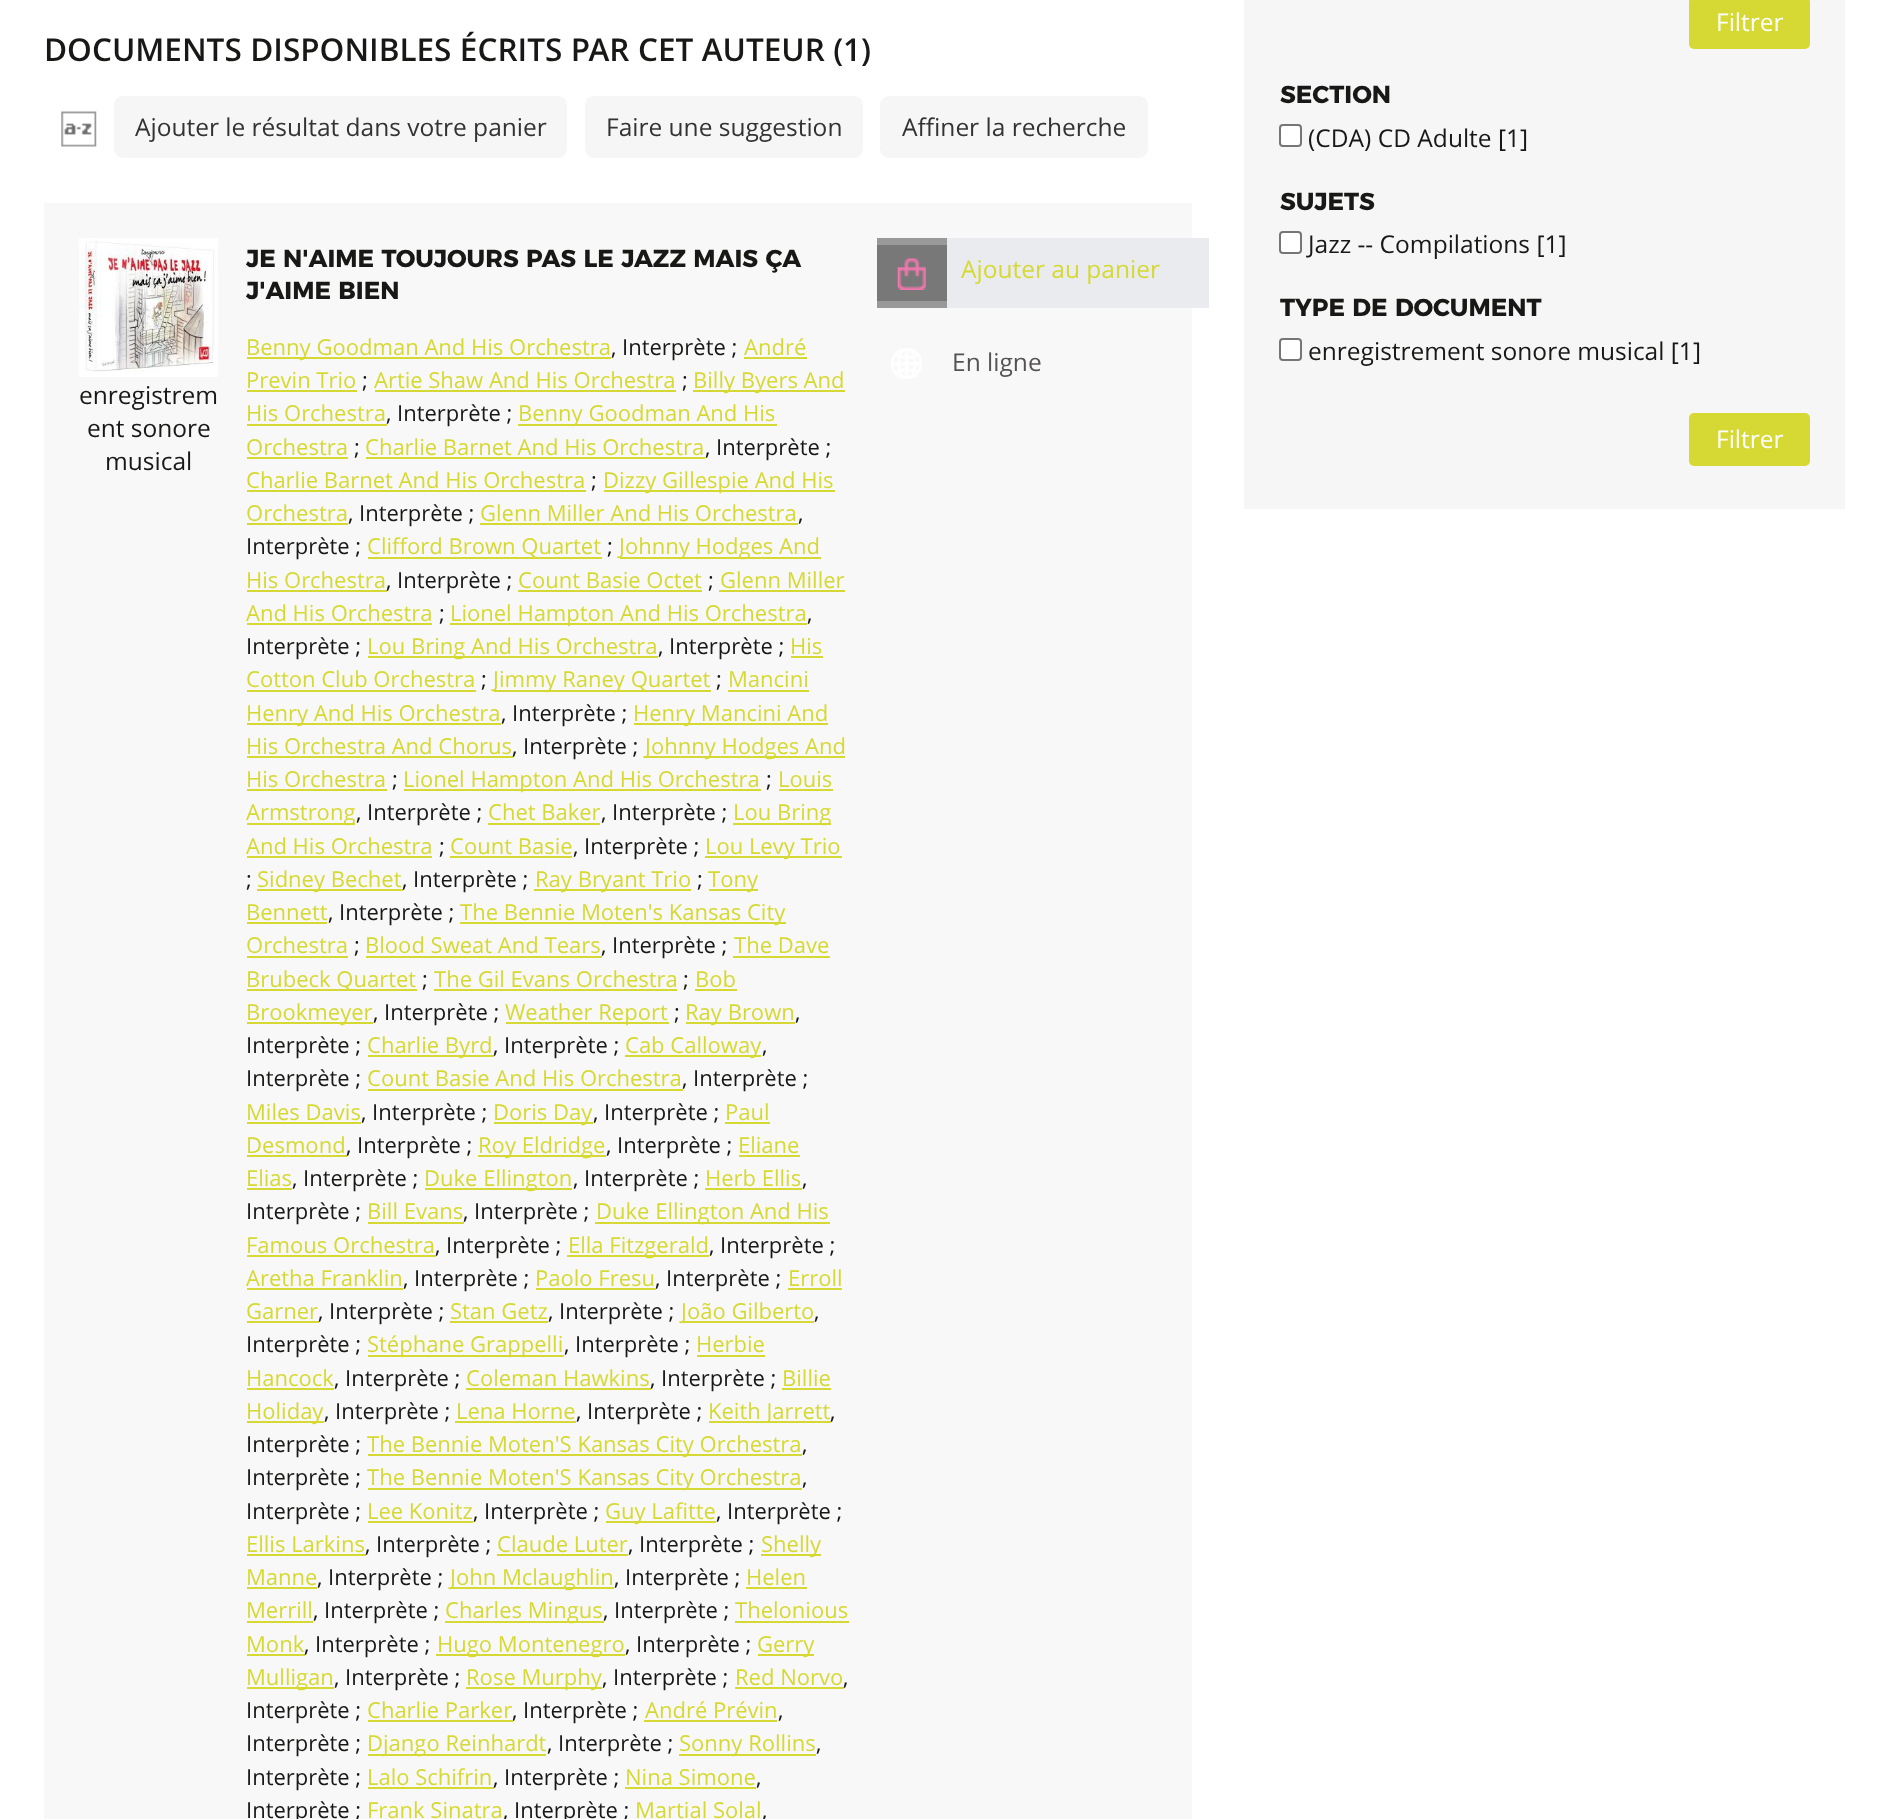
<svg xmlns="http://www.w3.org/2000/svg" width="1887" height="1819">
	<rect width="100%" height="100%" fill="#FFFFFF" />
	<g font-family="Open Sans" font-size="31.5" font-weight="600" fill="#181816">
		<text x="44" y="61" word-spacing="0.25">DOCUMENTS DISPONIBLES ÉCRITS PAR CET AUTEUR (</text>
		<text x="843" y="61">1)</text>
	</g>
	<image x="61" y="111" width="36" height="36" href="assets/img1.png" />
	<rect x="114" y="96" width="453" height="62" rx="9" fill="#F6F6F6" />
	<text x="135" y="136" font-family="Open Sans" font-size="24.5" fill="#333333">Ajouter le résultat dans votre panier</text>
	<rect x="585" y="96" width="278" height="62" rx="9" fill="#F6F6F6" />
	<text x="606" y="136" font-family="Open Sans" font-size="24.5" fill="#333333">Faire une suggestion</text>
	<rect x="880" y="96" width="268" height="62" rx="9" fill="#F6F6F6" />
	<text x="902" y="136" font-family="Open Sans" font-size="24.5" fill="#333333">Affiner la recherche</text>
	<rect x="44" y="203" width="1148" height="1616" fill="#F8F8F8" />
	<g font-family="Montserrat" font-size="24.5" font-weight="700" fill="#181816">
		<text x="246" y="267">JE N'AIME TOUJOURS PAS LE JAZZ MAIS ÇA</text>
		<text x="246" y="299">J'AIME BIEN</text>
	</g>
	<rect x="247" y="357" width="364" height="2" fill="#D6D933" />
	<text x="246" y="355" font-family="Open Sans" font-size="22" fill="#D6D933">Benny Goodman And His Orchestra</text>
	<text x="611" y="355" font-family="Open Sans" font-size="22" fill="#181816">, Interprète ;</text>
	<text x="744" y="355" font-family="Open Sans" font-size="22" fill="#D6D933">André</text>
	<rect x="744" y="357" width="63" height="2" fill="#D6D933" />
	<text x="246" y="388" font-family="Open Sans" font-size="22" fill="#D6D933">Previn Trio</text>
	<text x="362" y="388" font-family="Open Sans" font-size="22" fill="#181816">;</text>
	<rect x="247" y="390" width="110" height="2" fill="#D6D933" />
	<text x="374" y="388" font-family="Open Sans" font-size="22" fill="#D6D933">Artie Shaw And His Orchestra</text>
	<rect x="375" y="390" width="301" height="2" fill="#D6D933" />
	<text x="682" y="388" font-family="Open Sans" font-size="22" fill="#181816">;</text>
	<rect x="693" y="390" width="152" height="2" fill="#D6D933" />
	<g font-family="Open Sans" font-size="22" fill="#D6D933">
		<text x="693" y="388">Billy Byers And</text>
		<text x="246" y="421">His Orchestra</text>
	</g>
	<rect x="247" y="424" width="140" height="2" fill="#D6D933" />
	<text x="386" y="421" font-family="Open Sans" font-size="22" fill="#181816">, Interprète ;</text>
	<rect x="518" y="424" width="259" height="2" fill="#D6D933" />
	<g font-family="Open Sans" font-size="22" fill="#D6D933">
		<text x="518" y="421">Benny Goodman And His</text>
		<text x="246" y="455">Orchestra</text>
	</g>
	<rect x="247" y="457" width="101" height="2" fill="#D6D933" />
	<text x="354" y="455" font-family="Open Sans" font-size="22" fill="#181816">;</text>
	<text x="365" y="455" font-family="Open Sans" font-size="22" fill="#D6D933">Charlie Barnet And His Orchestra</text>
	<text x="705" y="455" font-family="Open Sans" font-size="22" fill="#181816">, Interprète ;</text>
	<rect x="366" y="457" width="339" height="2" fill="#D6D933" />
	<text x="246" y="488" font-family="Open Sans" font-size="22" fill="#D6D933">Charlie Barnet And His Orchestra</text>
	<rect x="247" y="490" width="339" height="2" fill="#D6D933" />
	<text x="591" y="488" font-family="Open Sans" font-size="22" fill="#181816">;</text>
	<rect x="604" y="490" width="231" height="2" fill="#D6D933" />
	<g font-family="Open Sans" font-size="22" fill="#D6D933">
		<text x="603" y="488">Dizzy Gillespie And His</text>
		<text x="246" y="521">Orchestra</text>
	</g>
	<text x="348" y="521" font-family="Open Sans" font-size="22" fill="#181816">, Interprète ;</text>
	<rect x="247" y="523" width="101" height="2" fill="#D6D933" />
	<text x="480" y="521" font-family="Open Sans" font-size="22" fill="#D6D933">Glenn Miller And His Orchestra</text>
	<text x="798" y="521" font-family="Open Sans" font-size="22" fill="#181816">,</text>
	<rect x="480" y="523" width="318" height="2" fill="#D6D933" />
	<text x="246" y="554" font-family="Open Sans" font-size="22" fill="#181816">Interprète ;</text>
	<rect x="368" y="557" width="234" height="2" fill="#D6D933" />
	<text x="367" y="554" font-family="Open Sans" font-size="22" fill="#D6D933">Clifford Brown Quartet</text>
	<text x="607" y="554" font-family="Open Sans" font-size="22" fill="#181816">;</text>
	<rect x="620" y="557" width="201" height="2" fill="#D6D933" />
	<g font-family="Open Sans" font-size="22" fill="#D6D933">
		<text x="619" y="554">Johnny Hodges And</text>
		<text x="246" y="588">His Orchestra</text>
	</g>
	<rect x="247" y="590" width="140" height="2" fill="#D6D933" />
	<text x="386" y="588" font-family="Open Sans" font-size="22" fill="#181816">, Interprète ;</text>
	<text x="518" y="588" font-family="Open Sans" font-size="22" fill="#D6D933">Count Basie Octet</text>
	<rect x="518" y="590" width="184" height="2" fill="#D6D933" />
	<text x="708" y="588" font-family="Open Sans" font-size="22" fill="#181816">;</text>
	<rect x="719" y="590" width="126" height="2" fill="#D6D933" />
	<g font-family="Open Sans" font-size="22" fill="#D6D933">
		<text x="720" y="588">Glenn Miller</text>
		<text x="246" y="621">And His Orchestra</text>
	</g>
	<rect x="247" y="623" width="185" height="2" fill="#D6D933" />
	<text x="439" y="621" font-family="Open Sans" font-size="22" fill="#181816">;</text>
	<rect x="450" y="623" width="357" height="2" fill="#D6D933" />
	<text x="450" y="621" font-family="Open Sans" font-size="22" fill="#D6D933">Lionel Hampton And His Orchestra</text>
	<g font-family="Open Sans" font-size="22" fill="#181816">
		<text x="807" y="621">,</text>
		<text x="246" y="654">Interprète ;</text>
	</g>
	<rect x="368" y="656" width="290" height="2" fill="#D6D933" />
	<text x="367" y="654" font-family="Open Sans" font-size="22" fill="#D6D933">Lou Bring And His Orchestra</text>
	<text x="658" y="654" font-family="Open Sans" font-size="22" fill="#181816">, Interprète ;</text>
	<text x="790" y="654" font-family="Open Sans" font-size="22" fill="#D6D933">His</text>
	<rect x="791" y="656" width="32" height="2" fill="#D6D933" />
	<text x="246" y="687" font-family="Open Sans" font-size="22" fill="#D6D933">Cotton Club Orchestra</text>
	<rect x="247" y="690" width="229" height="2" fill="#D6D933" />
	<text x="481" y="687" font-family="Open Sans" font-size="22" fill="#181816">;</text>
	<rect x="494" y="690" width="217" height="2" fill="#D6D933" />
	<text x="493" y="687" font-family="Open Sans" font-size="22" fill="#D6D933">Jimmy Raney Quartet</text>
	<text x="716" y="687" font-family="Open Sans" font-size="22" fill="#181816">;</text>
	<text x="728" y="687" font-family="Open Sans" font-size="22" fill="#D6D933">Mancini</text>
	<rect x="728" y="690" width="81" height="2" fill="#D6D933" />
	<rect x="247" y="723" width="254" height="2" fill="#D6D933" />
	<text x="246" y="721" font-family="Open Sans" font-size="22" fill="#D6D933">Henry And His Orchestra</text>
	<text x="501" y="721" font-family="Open Sans" font-size="22" fill="#181816">, Interprète ;</text>
	<rect x="634" y="723" width="194" height="2" fill="#D6D933" />
	<g font-family="Open Sans" font-size="22" fill="#D6D933">
		<text x="633" y="721">Henry Mancini And</text>
		<text x="246" y="754">His Orchestra And Chorus</text>
	</g>
	<rect x="247" y="756" width="266" height="2" fill="#D6D933" />
	<text x="512" y="754" font-family="Open Sans" font-size="22" fill="#181816">, Interprète ;</text>
	<rect x="644" y="756" width="201" height="2" fill="#D6D933" />
	<g font-family="Open Sans" font-size="22" fill="#D6D933">
		<text x="645" y="754">Johnny Hodges And</text>
		<text x="246" y="787">His Orchestra</text>
	</g>
	<text x="392" y="787" font-family="Open Sans" font-size="22" fill="#181816">;</text>
	<rect x="247" y="789" width="140" height="2" fill="#D6D933" />
	<rect x="404" y="789" width="357" height="2" fill="#D6D933" />
	<text x="403" y="787" font-family="Open Sans" font-size="22" fill="#D6D933">Lionel Hampton And His Orchestra</text>
	<text x="766" y="787" font-family="Open Sans" font-size="22" fill="#181816">;</text>
	<text x="778" y="787" font-family="Open Sans" font-size="22" fill="#D6D933">Louis</text>
	<rect x="779" y="789" width="54" height="2" fill="#D6D933" />
	<rect x="247" y="823" width="108" height="2" fill="#D6D933" />
	<text x="246" y="820" font-family="Open Sans" font-size="22" fill="#D6D933">Armstrong</text>
	<text x="356" y="820" font-family="Open Sans" font-size="22" fill="#181816">, Interprète ;</text>
	<text x="488" y="820" font-family="Open Sans" font-size="22" fill="#D6D933">Chet Baker</text>
	<text x="601" y="820" font-family="Open Sans" font-size="22" fill="#181816">, Interprète ;</text>
	<rect x="488" y="823" width="112" height="2" fill="#D6D933" />
	<rect x="733" y="823" width="98" height="2" fill="#D6D933" />
	<g font-family="Open Sans" font-size="22" fill="#D6D933">
		<text x="733" y="820">Lou Bring</text>
		<text x="246" y="854">And His Orchestra</text>
	</g>
	<rect x="247" y="856" width="185" height="2" fill="#D6D933" />
	<text x="439" y="854" font-family="Open Sans" font-size="22" fill="#181816">;</text>
	<text x="450" y="854" font-family="Open Sans" font-size="22" fill="#D6D933">Count Basie</text>
	<text x="573" y="854" font-family="Open Sans" font-size="22" fill="#181816">, Interprète ;</text>
	<rect x="450" y="856" width="122" height="2" fill="#D6D933" />
	<rect x="705" y="856" width="137" height="2" fill="#D6D933" />
	<text x="705" y="854" font-family="Open Sans" font-size="22" fill="#D6D933">Lou Levy Trio</text>
	<text x="246" y="887" font-family="Open Sans" font-size="22" fill="#181816">;</text>
	<rect x="257" y="889" width="146" height="2" fill="#D6D933" />
	<text x="257" y="887" font-family="Open Sans" font-size="22" fill="#D6D933">Sidney Bechet</text>
	<text x="402" y="887" font-family="Open Sans" font-size="22" fill="#181816">, Interprète ;</text>
	<rect x="534" y="889" width="157" height="2" fill="#D6D933" />
	<text x="535" y="887" font-family="Open Sans" font-size="22" fill="#D6D933">Ray Bryant Trio</text>
	<text x="697" y="887" font-family="Open Sans" font-size="22" fill="#181816">;</text>
	<rect x="709" y="889" width="49" height="2" fill="#D6D933" />
	<g font-family="Open Sans" font-size="22" fill="#D6D933">
		<text x="708" y="887">Tony</text>
		<text x="246" y="920">Bennett</text>
	</g>
	<text x="328" y="920" font-family="Open Sans" font-size="22" fill="#181816">, Interprète ;</text>
	<rect x="247" y="922" width="80" height="2" fill="#D6D933" />
	<rect x="460" y="922" width="326" height="2" fill="#D6D933" />
	<g font-family="Open Sans" font-size="22" fill="#D6D933">
		<text x="460" y="920">The Bennie Moten's Kansas City</text>
		<text x="246" y="953">Orchestra</text>
	</g>
	<rect x="247" y="956" width="101" height="2" fill="#D6D933" />
	<text x="354" y="953" font-family="Open Sans" font-size="22" fill="#181816">;</text>
	<text x="365" y="953" font-family="Open Sans" font-size="22" fill="#D6D933">Blood Sweat And Tears</text>
	<text x="601" y="953" font-family="Open Sans" font-size="22" fill="#181816">, Interprète ;</text>
	<rect x="366" y="956" width="236" height="2" fill="#D6D933" />
	<text x="734" y="953" font-family="Open Sans" font-size="22" fill="#D6D933">The Dave</text>
	<rect x="733" y="956" width="97" height="2" fill="#D6D933" />
	<rect x="247" y="989" width="170" height="2" fill="#D6D933" />
	<text x="246" y="987" font-family="Open Sans" font-size="22" fill="#D6D933">Brubeck Quartet</text>
	<text x="422" y="987" font-family="Open Sans" font-size="22" fill="#181816">;</text>
	<text x="434" y="987" font-family="Open Sans" font-size="22" fill="#D6D933">The Gil Evans Orchestra</text>
	<rect x="434" y="989" width="243" height="2" fill="#D6D933" />
	<text x="683" y="987" font-family="Open Sans" font-size="22" fill="#181816">;</text>
	<text x="695" y="987" font-family="Open Sans" font-size="22" fill="#D6D933">Bob</text>
	<rect x="695" y="989" width="42" height="2" fill="#D6D933" />
	<rect x="247" y="1022" width="126" height="2" fill="#D6D933" />
	<text x="246" y="1020" font-family="Open Sans" font-size="22" fill="#D6D933">Brookmeyer</text>
	<text x="373" y="1020" font-family="Open Sans" font-size="22" fill="#181816">, Interprète ;</text>
	<rect x="506" y="1022" width="163" height="2" fill="#D6D933" />
	<text x="505" y="1020" font-family="Open Sans" font-size="22" fill="#D6D933">Weather Report</text>
	<text x="674" y="1020" font-family="Open Sans" font-size="22" fill="#181816">;</text>
	<rect x="686" y="1022" width="109" height="2" fill="#D6D933" />
	<text x="685" y="1020" font-family="Open Sans" font-size="22" fill="#D6D933">Ray Brown</text>
	<g font-family="Open Sans" font-size="22" fill="#181816">
		<text x="795" y="1020">,</text>
		<text x="246" y="1053">Interprète ;</text>
	</g>
	<rect x="368" y="1055" width="126" height="2" fill="#D6D933" />
	<text x="367" y="1053" font-family="Open Sans" font-size="22" fill="#D6D933">Charlie Byrd</text>
	<text x="493" y="1053" font-family="Open Sans" font-size="22" fill="#181816">, Interprète ;</text>
	<rect x="625" y="1055" width="136" height="2" fill="#D6D933" />
	<text x="625" y="1053" font-family="Open Sans" font-size="22" fill="#D6D933">Cab Calloway</text>
	<g font-family="Open Sans" font-size="22" fill="#181816">
		<text x="762" y="1053">,</text>
		<text x="246" y="1086">Interprète ;</text>
	</g>
	<text x="367" y="1086" font-family="Open Sans" font-size="22" fill="#D6D933">Count Basie And His Orchestra</text>
	<text x="682" y="1086" font-family="Open Sans" font-size="22" fill="#181816">, Interprète ;</text>
	<rect x="368" y="1089" width="315" height="2" fill="#D6D933" />
	<text x="246" y="1120" font-family="Open Sans" font-size="22" fill="#D6D933">Miles Davis</text>
	<text x="361" y="1120" font-family="Open Sans" font-size="22" fill="#181816">, Interprète ;</text>
	<rect x="247" y="1122" width="114" height="2" fill="#D6D933" />
	<rect x="494" y="1122" width="99" height="2" fill="#D6D933" />
	<text x="493" y="1120" font-family="Open Sans" font-size="22" fill="#D6D933">Doris Day</text>
	<text x="593" y="1120" font-family="Open Sans" font-size="22" fill="#181816">, Interprète ;</text>
	<text x="725" y="1120" font-family="Open Sans" font-size="22" fill="#D6D933">Paul</text>
	<rect x="725" y="1122" width="45" height="2" fill="#D6D933" />
	<text x="246" y="1153" font-family="Open Sans" font-size="22" fill="#D6D933">Desmond</text>
	<rect x="247" y="1155" width="100" height="2" fill="#D6D933" />
	<text x="346" y="1153" font-family="Open Sans" font-size="22" fill="#181816">, Interprète ;</text>
	<rect x="478" y="1155" width="128" height="2" fill="#D6D933" />
	<text x="478" y="1153" font-family="Open Sans" font-size="22" fill="#D6D933">Roy Eldridge</text>
	<text x="606" y="1153" font-family="Open Sans" font-size="22" fill="#181816">, Interprète ;</text>
	<text x="738" y="1153" font-family="Open Sans" font-size="22" fill="#D6D933">Eliane</text>
	<rect x="739" y="1155" width="61" height="2" fill="#D6D933" />
	<text x="246" y="1186" font-family="Open Sans" font-size="22" fill="#D6D933">Elias</text>
	<text x="292" y="1186" font-family="Open Sans" font-size="22" fill="#181816">, Interprète ;</text>
	<rect x="247" y="1188" width="45" height="2" fill="#D6D933" />
	<rect x="425" y="1188" width="147" height="2" fill="#D6D933" />
	<text x="424" y="1186" font-family="Open Sans" font-size="22" fill="#D6D933">Duke Ellington</text>
	<text x="573" y="1186" font-family="Open Sans" font-size="22" fill="#181816">, Interprète ;</text>
	<text x="705" y="1186" font-family="Open Sans" font-size="22" fill="#D6D933">Herb Ellis</text>
	<text x="802" y="1186" font-family="Open Sans" font-size="22" fill="#181816">,</text>
	<rect x="705" y="1188" width="97" height="2" fill="#D6D933" />
	<text x="246" y="1219" font-family="Open Sans" font-size="22" fill="#181816">Interprète ;</text>
	<text x="367" y="1219" font-family="Open Sans" font-size="22" fill="#D6D933">Bill Evans</text>
	<text x="463" y="1219" font-family="Open Sans" font-size="22" fill="#181816">, Interprète ;</text>
	<rect x="368" y="1222" width="96" height="2" fill="#D6D933" />
	<rect x="595" y="1222" width="235" height="2" fill="#D6D933" />
	<g font-family="Open Sans" font-size="22" fill="#D6D933">
		<text x="596" y="1219">Duke Ellington And His</text>
		<text x="246" y="1253">Famous Orchestra</text>
	</g>
	<rect x="247" y="1255" width="189" height="2" fill="#D6D933" />
	<text x="435" y="1253" font-family="Open Sans" font-size="22" fill="#181816">, Interprète ;</text>
	<rect x="567" y="1255" width="142" height="2" fill="#D6D933" />
	<text x="568" y="1253" font-family="Open Sans" font-size="22" fill="#D6D933">Ella Fitzgerald</text>
	<text x="709" y="1253" font-family="Open Sans" font-size="22" fill="#181816">, Interprète ;</text>
	<text x="246" y="1286" font-family="Open Sans" font-size="22" fill="#D6D933">Aretha Franklin</text>
	<text x="403" y="1286" font-family="Open Sans" font-size="22" fill="#181816">, Interprète ;</text>
	<rect x="247" y="1288" width="156" height="2" fill="#D6D933" />
	<text x="535" y="1286" font-family="Open Sans" font-size="22" fill="#D6D933">Paolo Fresu</text>
	<text x="655" y="1286" font-family="Open Sans" font-size="22" fill="#181816">, Interprète ;</text>
	<rect x="536" y="1288" width="120" height="2" fill="#D6D933" />
	<text x="788" y="1286" font-family="Open Sans" font-size="22" fill="#D6D933">Erroll</text>
	<rect x="788" y="1288" width="54" height="2" fill="#D6D933" />
	<text x="246" y="1319" font-family="Open Sans" font-size="22" fill="#D6D933">Garner</text>
	<rect x="247" y="1321" width="72" height="2" fill="#D6D933" />
	<text x="318" y="1319" font-family="Open Sans" font-size="22" fill="#181816">, Interprète ;</text>
	<text x="450" y="1319" font-family="Open Sans" font-size="22" fill="#D6D933">Stan Getz</text>
	<text x="548" y="1319" font-family="Open Sans" font-size="22" fill="#181816">, Interprète ;</text>
	<rect x="450" y="1321" width="98" height="2" fill="#D6D933" />
	<rect x="681" y="1321" width="133" height="2" fill="#D6D933" />
	<text x="681" y="1319" font-family="Open Sans" font-size="22" fill="#D6D933">João Gilberto</text>
	<g font-family="Open Sans" font-size="22" fill="#181816">
		<text x="814" y="1319">,</text>
		<text x="246" y="1352">Interprète ;</text>
	</g>
	<rect x="368" y="1355" width="196" height="2" fill="#D6D933" />
	<text x="367" y="1352" font-family="Open Sans" font-size="22" fill="#D6D933">Stéphane Grappelli</text>
	<text x="564" y="1352" font-family="Open Sans" font-size="22" fill="#181816">, Interprète ;</text>
	<text x="696" y="1352" font-family="Open Sans" font-size="22" fill="#D6D933">Herbie</text>
	<rect x="697" y="1355" width="68" height="2" fill="#D6D933" />
	<text x="246" y="1386" font-family="Open Sans" font-size="22" fill="#D6D933">Hancock</text>
	<text x="334" y="1386" font-family="Open Sans" font-size="22" fill="#181816">, Interprète ;</text>
	<rect x="247" y="1388" width="87" height="2" fill="#D6D933" />
	<text x="466" y="1386" font-family="Open Sans" font-size="22" fill="#D6D933">Coleman Hawkins</text>
	<rect x="466" y="1388" width="185" height="2" fill="#D6D933" />
	<text x="650" y="1386" font-family="Open Sans" font-size="22" fill="#181816">, Interprète ;</text>
	<text x="782" y="1386" font-family="Open Sans" font-size="22" fill="#D6D933">Billie</text>
	<rect x="782" y="1388" width="49" height="2" fill="#D6D933" />
	<rect x="247" y="1421" width="77" height="2" fill="#D6D933" />
	<text x="246" y="1419" font-family="Open Sans" font-size="22" fill="#D6D933">Holiday</text>
	<text x="324" y="1419" font-family="Open Sans" font-size="22" fill="#181816">, Interprète ;</text>
	<text x="456" y="1419" font-family="Open Sans" font-size="22" fill="#D6D933">Lena Horne</text>
	<text x="576" y="1419" font-family="Open Sans" font-size="22" fill="#181816">, Interprète ;</text>
	<rect x="455" y="1421" width="121" height="2" fill="#D6D933" />
	<rect x="709" y="1421" width="122" height="2" fill="#D6D933" />
	<text x="708" y="1419" font-family="Open Sans" font-size="22" fill="#D6D933">Keith Jarrett</text>
	<g font-family="Open Sans" font-size="22" fill="#181816">
		<text x="830" y="1419">,</text>
		<text x="246" y="1452">Interprète ;</text>
	</g>
	<rect x="368" y="1454" width="434" height="2" fill="#D6D933" />
	<text x="367" y="1452" font-family="Open Sans" font-size="22" fill="#D6D933">The Bennie Moten'S Kansas City Orchestra</text>
	<g font-family="Open Sans" font-size="22" fill="#181816">
		<text x="802" y="1452">,</text>
		<text x="246" y="1485">Interprète ;</text>
	</g>
	<rect x="368" y="1488" width="434" height="2" fill="#D6D933" />
	<text x="367" y="1485" font-family="Open Sans" font-size="22" fill="#D6D933">The Bennie Moten'S Kansas City Orchestra</text>
	<g font-family="Open Sans" font-size="22" fill="#181816">
		<text x="802" y="1485">,</text>
		<text x="246" y="1519">Interprète ;</text>
	</g>
	<text x="367" y="1519" font-family="Open Sans" font-size="22" fill="#D6D933">Lee Konitz</text>
	<text x="473" y="1519" font-family="Open Sans" font-size="22" fill="#181816">, Interprète ;</text>
	<rect x="368" y="1521" width="105" height="2" fill="#D6D933" />
	<rect x="606" y="1521" width="110" height="2" fill="#D6D933" />
	<text x="605" y="1519" font-family="Open Sans" font-size="22" fill="#D6D933">Guy Lafitte</text>
	<text x="716" y="1519" font-family="Open Sans" font-size="22" fill="#181816">, Interprète ;</text>
	<text x="246" y="1552" font-family="Open Sans" font-size="22" fill="#D6D933">Ellis Larkins</text>
	<rect x="247" y="1554" width="119" height="2" fill="#D6D933" />
	<text x="365" y="1552" font-family="Open Sans" font-size="22" fill="#181816">, Interprète ;</text>
	<text x="497" y="1552" font-family="Open Sans" font-size="22" fill="#D6D933">Claude Luter</text>
	<text x="628" y="1552" font-family="Open Sans" font-size="22" fill="#181816">, Interprète ;</text>
	<rect x="497" y="1554" width="131" height="2" fill="#D6D933" />
	<rect x="761" y="1554" width="60" height="2" fill="#D6D933" />
	<g font-family="Open Sans" font-size="22" fill="#D6D933">
		<text x="761" y="1552">Shelly</text>
		<text x="246" y="1585">Manne</text>
	</g>
	<text x="317" y="1585" font-family="Open Sans" font-size="22" fill="#181816">, Interprète ;</text>
	<rect x="247" y="1587" width="70" height="2" fill="#D6D933" />
	<rect x="450" y="1587" width="164" height="2" fill="#D6D933" />
	<text x="450" y="1585" font-family="Open Sans" font-size="22" fill="#D6D933">John Mclaughlin</text>
	<text x="614" y="1585" font-family="Open Sans" font-size="22" fill="#181816">, Interprète ;</text>
	<text x="746" y="1585" font-family="Open Sans" font-size="22" fill="#D6D933">Helen</text>
	<rect x="746" y="1587" width="61" height="2" fill="#D6D933" />
	<text x="246" y="1618" font-family="Open Sans" font-size="22" fill="#D6D933">Merrill</text>
	<text x="313" y="1618" font-family="Open Sans" font-size="22" fill="#181816">, Interprète ;</text>
	<rect x="247" y="1621" width="66" height="2" fill="#D6D933" />
	<rect x="445" y="1621" width="159" height="2" fill="#D6D933" />
	<text x="445" y="1618" font-family="Open Sans" font-size="22" fill="#D6D933">Charles Mingus</text>
	<text x="603" y="1618" font-family="Open Sans" font-size="22" fill="#181816">, Interprète ;</text>
	<text x="735" y="1618" font-family="Open Sans" font-size="22" fill="#D6D933">Thelonious</text>
	<rect x="735" y="1621" width="114" height="2" fill="#D6D933" />
	<text x="246" y="1652" font-family="Open Sans" font-size="22" fill="#D6D933">Monk</text>
	<rect x="247" y="1654" width="58" height="2" fill="#D6D933" />
	<text x="304" y="1652" font-family="Open Sans" font-size="22" fill="#181816">, Interprète ;</text>
	<rect x="436" y="1654" width="189" height="2" fill="#D6D933" />
	<text x="437" y="1652" font-family="Open Sans" font-size="22" fill="#D6D933">Hugo Montenegro</text>
	<text x="625" y="1652" font-family="Open Sans" font-size="22" fill="#181816">, Interprète ;</text>
	<rect x="758" y="1654" width="56" height="2" fill="#D6D933" />
	<text x="757" y="1652" font-family="Open Sans" font-size="22" fill="#D6D933">Gerry</text>
	<rect x="247" y="1687" width="87" height="2" fill="#D6D933" />
	<text x="246" y="1685" font-family="Open Sans" font-size="22" fill="#D6D933">Mulligan</text>
	<text x="334" y="1685" font-family="Open Sans" font-size="22" fill="#181816">, Interprète ;</text>
	<rect x="466" y="1687" width="136" height="2" fill="#D6D933" />
	<text x="466" y="1685" font-family="Open Sans" font-size="22" fill="#D6D933">Rose Murphy</text>
	<text x="602" y="1685" font-family="Open Sans" font-size="22" fill="#181816">, Interprète ;</text>
	<text x="735" y="1685" font-family="Open Sans" font-size="22" fill="#D6D933">Red Norvo</text>
	<rect x="735" y="1687" width="109" height="2" fill="#D6D933" />
	<g font-family="Open Sans" font-size="22" fill="#181816">
		<text x="843" y="1685">,</text>
		<text x="246" y="1718">Interprète ;</text>
	</g>
	<text x="367" y="1718" font-family="Open Sans" font-size="22" fill="#D6D933">Charlie Parker</text>
	<text x="512" y="1718" font-family="Open Sans" font-size="22" fill="#181816">, Interprète ;</text>
	<rect x="368" y="1720" width="145" height="2" fill="#D6D933" />
	<text x="645" y="1718" font-family="Open Sans" font-size="22" fill="#D6D933">André Prévin</text>
	<text x="778" y="1718" font-family="Open Sans" font-size="22" fill="#181816">,</text>
	<rect x="644" y="1720" width="133" height="2" fill="#D6D933" />
	<text x="246" y="1751" font-family="Open Sans" font-size="22" fill="#181816">Interprète ;</text>
	<rect x="368" y="1754" width="178" height="2" fill="#D6D933" />
	<text x="367" y="1751" font-family="Open Sans" font-size="22" fill="#D6D933">Django Reinhardt</text>
	<text x="547" y="1751" font-family="Open Sans" font-size="22" fill="#181816">, Interprète ;</text>
	<rect x="679" y="1754" width="137" height="2" fill="#D6D933" />
	<text x="679" y="1751" font-family="Open Sans" font-size="22" fill="#D6D933">Sonny Rollins</text>
	<g font-family="Open Sans" font-size="22" fill="#181816">
		<text x="816" y="1751">,</text>
		<text x="246" y="1785">Interprète ;</text>
	</g>
	<text x="367" y="1785" font-family="Open Sans" font-size="22" fill="#D6D933">Lalo Schifrin</text>
	<rect x="368" y="1787" width="126" height="2" fill="#D6D933" />
	<text x="493" y="1785" font-family="Open Sans" font-size="22" fill="#181816">, Interprète ;</text>
	<text x="625" y="1785" font-family="Open Sans" font-size="22" fill="#D6D933">Nina Simone</text>
	<text x="756" y="1785" font-family="Open Sans" font-size="22" fill="#181816">,</text>
	<rect x="625" y="1787" width="131" height="2" fill="#D6D933" />
	<text x="246" y="1818" font-family="Open Sans" font-size="22" fill="#181816">Interprète ;</text>
	<text x="367" y="1818" font-family="Open Sans" font-size="22" fill="#D6D933">Frank Sinatra</text>
	<text x="503" y="1818" font-family="Open Sans" font-size="22" fill="#181816">, Interprète ;</text>
	<text x="635" y="1818" font-family="Open Sans" font-size="22" fill="#D6D933">Martial Solal</text>
	<text x="762" y="1818" font-family="Open Sans" font-size="22" fill="#181816">,</text>
	<rect x="877" y="238" width="70" height="70" fill="#999999" />
	<rect x="877" y="245" width="70" height="56" fill="#787878" />
	<image x="897" y="258" width="29" height="32" href="assets/img2.png" />
	<rect x="947" y="238" width="262" height="70" fill="#E9EBEE" />
	<text x="961" y="278" font-family="Open Sans" font-size="24.5" fill="#D6D933">Ajouter au panier</text>
	<image x="891" y="348" width="31" height="31" href="assets/img3.png" />
	<text x="952" y="371" font-family="Open Sans" font-size="24.5" fill="#555252">En ligne</text>
	<image x="79" y="238" width="139" height="139" href="assets/img4.png" />
	<g font-family="Open Sans" font-size="24.5" fill="#181816">
		<text x="79" y="404">enregistrem</text>
		<text x="87" y="437">ent sonore</text>
		<text x="105" y="470">musical</text>
	</g>
	<rect x="1244" y="0" width="601" height="509" fill="#F6F6F6" />
	<rect x="1689" y="-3" width="121" height="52" rx="5" fill="#D6D933" />
	<text x="1716" y="31" font-family="Open Sans" font-size="24.5" fill="#FFFFFF">Filtrer</text>
	<text x="1280" y="103" font-family="Montserrat" font-size="24.5" font-weight="700" fill="#181816">SECTION</text>
	<rect x="1280" y="125" width="21" height="21" rx="3" fill="#FFFFFF" stroke="#767676" stroke-width="2" />
	<text x="1308" y="147" font-family="Open Sans" font-size="24.5" fill="#181816">(CDA) CD Adulte [1]</text>
	<text x="1280" y="210" font-family="Montserrat" font-size="24.5" font-weight="700" fill="#181816">SUJETS</text>
	<rect x="1280" y="232" width="21" height="21" rx="3" fill="#FFFFFF" stroke="#767676" stroke-width="2" />
	<text x="1308" y="253" font-family="Open Sans" font-size="24.5" fill="#181816">Jazz -- Compilations [1]</text>
	<text x="1280" y="316" font-family="Montserrat" font-size="24.5" font-weight="700" fill="#181816">TYPE DE DOCUMENT</text>
	<rect x="1280" y="339" width="21" height="21" rx="3" fill="#FFFFFF" stroke="#767676" stroke-width="2" />
	<text x="1308" y="360" font-family="Open Sans" font-size="24.5" fill="#181816">enregistrement sonore musical [1]</text>
	<rect x="1689" y="413" width="121" height="53" rx="5" fill="#D6D933" />
	<text x="1716" y="448" font-family="Open Sans" font-size="24.5" fill="#FFFFFF">Filtrer</text>
</svg>
